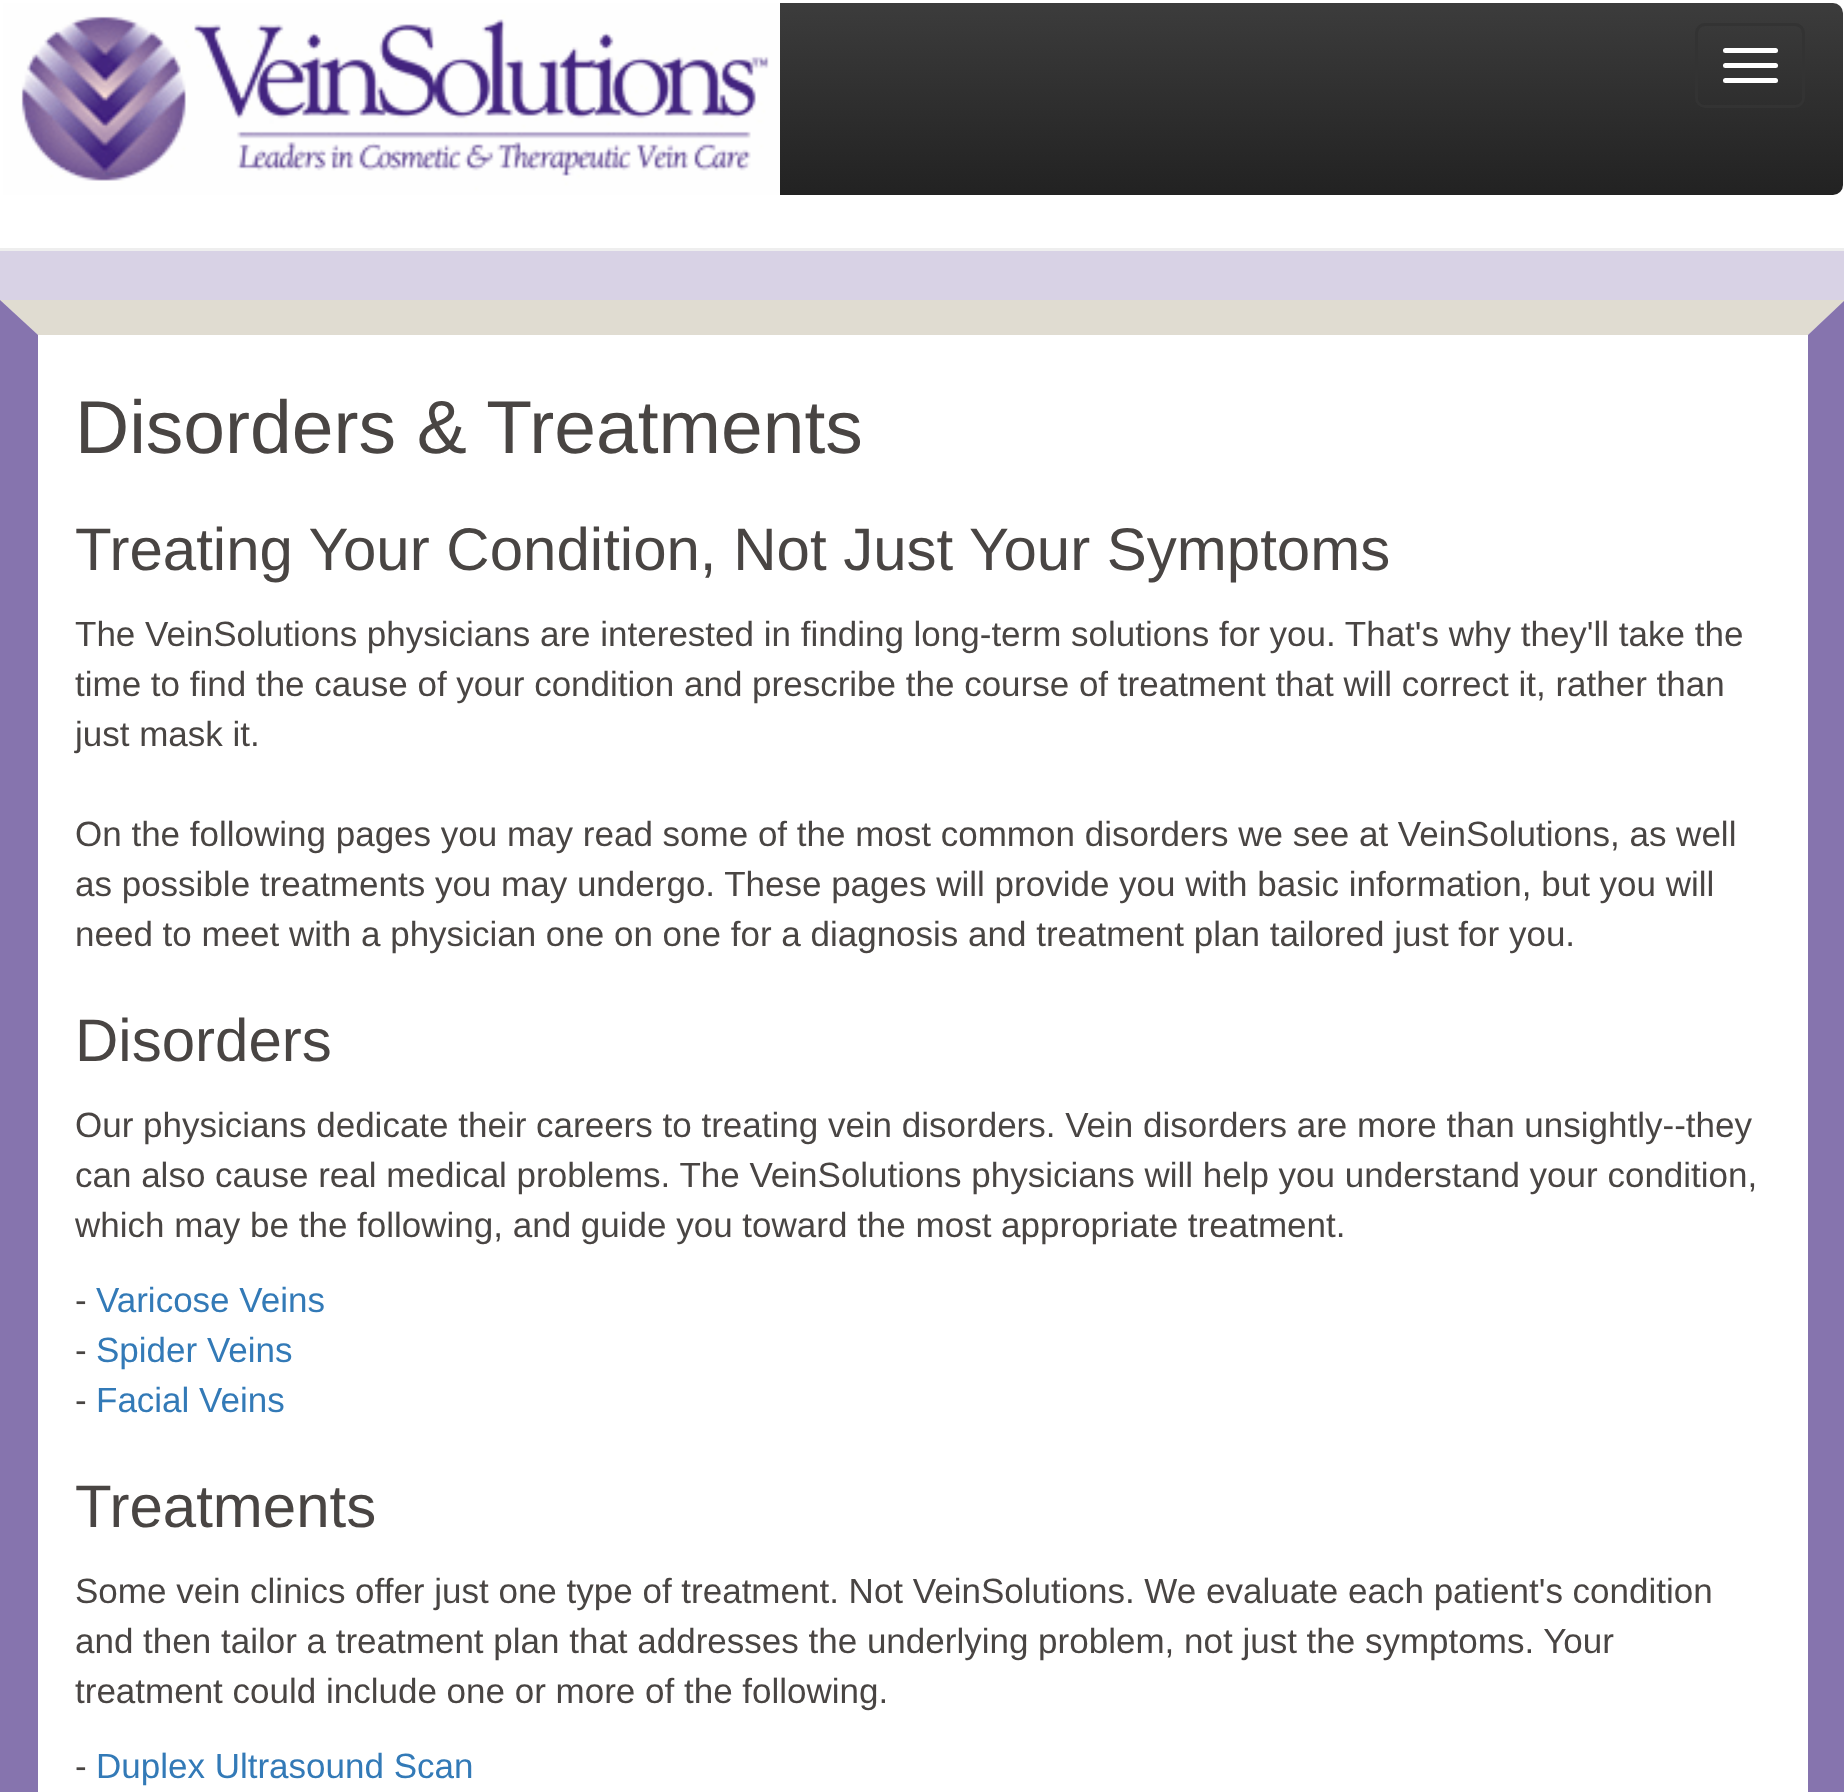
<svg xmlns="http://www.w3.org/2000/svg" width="1844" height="1792">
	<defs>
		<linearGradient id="g1" gradientUnits="userSpaceOnUse" x1="923" y1="2.5" x2="923" y2="195"><stop offset="0" stop-color="#3C3C3C" /><stop offset="1" stop-color="#222222" /></linearGradient>
	</defs>
	<rect width="100%" height="100%" fill="#D8D2E5" />
	<rect x="0" y="0" width="1844" height="248" fill="#FFFFFF" />
	<rect x="3" y="3" width="1840" height="192" rx="10" fill="url(#g1)" />
	<image x="3" y="3" width="777" height="192" href="assets/img1.png" />
	<rect x="1696.5" y="24.5" width="107" height="82" rx="8.5" fill="none" stroke="#333333" stroke-width="3" />
	<rect x="1723" y="48" width="55" height="5" rx="2.5" fill="#FFFFFF" />
	<rect x="1723" y="63" width="55" height="5" rx="2.5" fill="#FFFFFF" />
	<rect x="1723" y="78" width="55" height="5" rx="2.5" fill="#FFFFFF" />
	<rect x="0" y="248" width="1844" height="3" fill="#EEEEEE" />
	<rect x="38" y="335" width="1770" height="1457" fill="#FFFFFF" />
	<path d="M0 300H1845L1808 335H38Z" fill="#E0DCD1" />
	<path d="M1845 300V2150L1808 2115V335Z" fill="#8674AE" />
	<path d="M0 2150V300L38 335V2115Z" fill="#8674AE" />
	<text x="75" y="453" font-family="Liberation Sans" font-size="75" fill="#494543">Disorders &amp; Treatments</text>
	<text x="75" y="570" font-family="Liberation Sans" font-size="60" fill="#494543">Treating Your Condition, Not Just Your Symptoms</text>
	<g font-family="Liberation Sans" font-size="35" fill="#494543">
		<text x="75" y="646">The VeinSolutions physicians are interested in finding long-term solutions for you. That's why they'll take the</text>
		<text x="75" y="696">time to find the cause of your condition and prescribe the course of treatment that will correct it, rather than</text>
		<text x="75" y="746">just mask it.</text>
		<text x="75" y="846">On the following pages you may read some of the most common disorders we see at VeinSolutions, as well</text>
		<text x="75" y="896">as possible treatments you may undergo. These pages will provide you with basic information, but you will</text>
		<text x="75" y="946">need to meet with a physician one on one for a diagnosis and treatment plan tailored just for you.</text>
	</g>
	<text x="75" y="1061" font-family="Liberation Sans" font-size="60" fill="#494543">Disorders</text>
	<g font-family="Liberation Sans" font-size="35" fill="#494543">
		<text x="75" y="1137">Our physicians dedicate their careers to treating vein disorders. Vein disorders are more than unsightly--they</text>
		<text x="75" y="1187">can also cause real medical problems. The VeinSolutions physicians will help you understand your condition,</text>
		<text x="75" y="1237">which may be the following, and guide you toward the most appropriate treatment.</text>
		<text x="75" y="1312">-</text>
	</g>
	<text x="96" y="1312" font-family="Liberation Sans" font-size="35" fill="#337AB7">Varicose Veins</text>
	<text x="75" y="1362" font-family="Liberation Sans" font-size="35" fill="#494543">-</text>
	<text x="96" y="1362" font-family="Liberation Sans" font-size="35" fill="#337AB7">Spider Veins</text>
	<text x="75" y="1412" font-family="Liberation Sans" font-size="35" fill="#494543">-</text>
	<text x="96" y="1412" font-family="Liberation Sans" font-size="35" fill="#337AB7">Facial Veins</text>
	<text x="75" y="1527" font-family="Liberation Sans" font-size="60" fill="#494543">Treatments</text>
	<g font-family="Liberation Sans" font-size="35" fill="#494543">
		<text x="75" y="1603">Some vein clinics offer just one type of treatment. Not VeinSolutions. We evaluate each patient's condition</text>
		<text x="75" y="1653">and then tailor a treatment plan that addresses the underlying problem, not just the symptoms. Your</text>
		<text x="75" y="1703">treatment could include one or more of the following.</text>
		<text x="75" y="1778">-</text>
	</g>
	<text x="96" y="1778" font-family="Liberation Sans" font-size="35" fill="#337AB7">Duplex Ultrasound Scan</text>
</svg>
